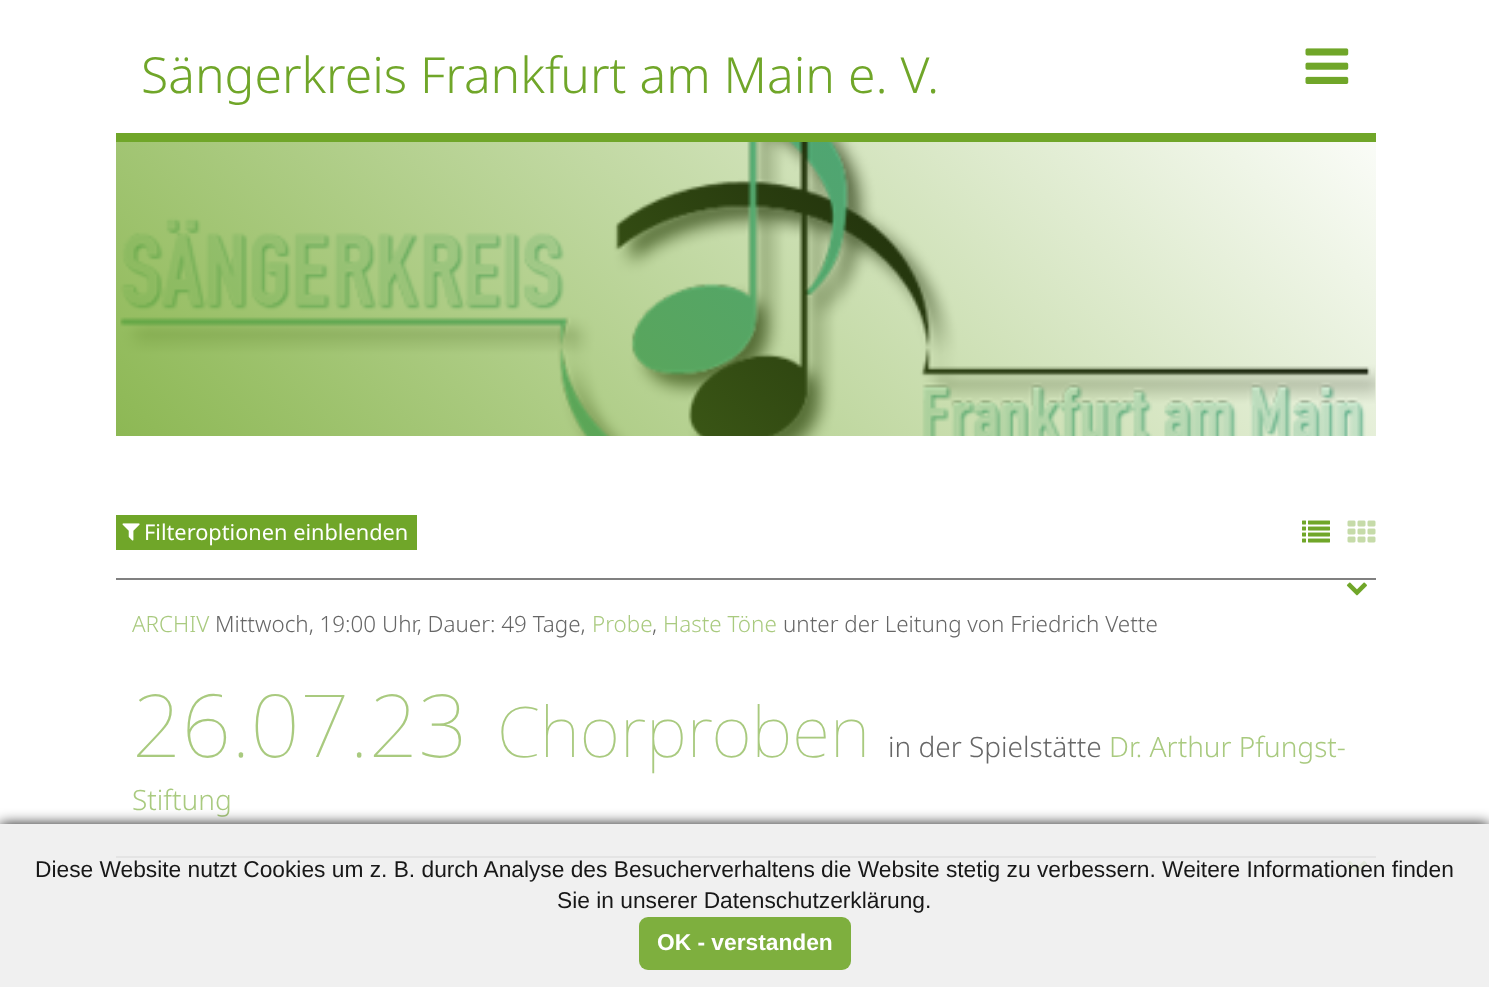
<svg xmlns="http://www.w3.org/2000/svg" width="1489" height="987">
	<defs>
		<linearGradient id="g1" gradientUnits="userSpaceOnUse" x1="339" y1="659" x2="1152" y2="-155"><stop offset="0" stop-color="#70A629" stop-opacity="0.8" /><stop offset="1" stop-color="#70A629" stop-opacity="0" /></linearGradient>
		<clipPath id="clip1"><path d="M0 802H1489V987H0ZM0 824H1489V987H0Z" clip-rule="evenodd" /></clipPath>
	</defs>
	<rect width="100%" height="100%" fill="#FFFFFF" />
	<rect x="116" y="133" width="1260" height="9" fill="#70A629" />
	<text x="141" y="93" font-family="Noto Sans" font-size="49.8" font-weight="300" fill="#70A629">Sängerkreis Frankfurt am Main e. V.</text>
	<image x="1305" y="48" width="44" height="36" href="assets/img1.png" />
	<image x="120" y="142" width="1256" height="294" href="assets/img2.png" />
	<rect x="116" y="142" width="1260" height="294" fill="url(#g1)" />
	<rect x="116" y="515" width="301" height="35" fill="#70A629" />
	<image x="122" y="523" width="18" height="18" href="assets/img3.png" />
	<text x="144" y="540" font-family="Noto Sans" font-size="21.75" fill="#FFFFFF">Filteroptionen einblenden</text>
	<image x="1302" y="520" width="28" height="23" href="assets/img4.png" />
	<image x="1347" y="520" width="29" height="23" href="assets/img5.png" />
	<rect x="116" y="578" width="1260" height="2" fill="#808080" />
	<image x="1346" y="582" width="21" height="14" href="assets/img6.png" />
	<text x="132" y="632" font-family="Noto Sans" font-size="22.4" font-weight="300" fill="#A9CA7F">ARCHIV</text>
	<text x="215" y="632" font-family="Noto Sans" font-size="22.4" font-weight="300" fill="#666666">Mittwoch, 19:00 Uhr, Dauer: 49 Tage,</text>
	<text x="592" y="632" font-family="Noto Sans" font-size="22.4" font-weight="300" fill="#A9CA7F">Probe</text>
	<text x="652" y="632" font-family="Noto Sans" font-size="22.4" font-weight="300" fill="#666666">,</text>
	<text x="663" y="632" font-family="Noto Sans" font-size="22.4" font-weight="300" fill="#A9CA7F">Haste Töne</text>
	<text x="783" y="632" font-family="Noto Sans" font-size="22.4" font-weight="300" fill="#666666">unter der Leitung von Friedrich Vette</text>
	<text x="132" y="757" font-family="Noto Sans" font-size="87" font-weight="100" fill="#A9CA7F">26.07.23</text>
	<text x="497" y="757" font-family="Noto Sans" font-size="69.75" font-weight="100" fill="#A9CA7F">Chorproben</text>
	<text x="888" y="757" font-family="Noto Sans" font-size="28" font-weight="300" fill="#666666">in der Spielstätte</text>
	<g font-family="Noto Sans" font-size="28" font-weight="300" fill="#A9CA7F">
		<text x="1109" y="757">Dr. Arthur Pfungst-</text>
		<text x="132" y="810">Stiftung</text>
	</g>
	<rect x="116" y="856" width="1260" height="2" fill="#808080" />
	<image x="1346" y="860" width="21" height="14" href="assets/img7.png" />
	<g clip-path="url(#clip1)">
		<rect x="0" y="824" width="1489" height="163" fill="#000000" fill-opacity="0.9" filter="blur(7px)" />
	</g>
	<rect x="0" y="824" width="1489" height="163" fill="#EEEEEE" fill-opacity="0.9" />
	<g font-family="Liberation Sans" font-size="22.75" fill="#181818">
		<text x="35" y="877">Diese Website nutzt Cookies um z. B. durch Analyse des Besucherverhaltens die Website stetig zu verbessern. Weitere Informationen finden</text>
		<text x="557" y="908">Sie in unserer Datenschutzerklärung.</text>
	</g>
	<rect x="639" y="917" width="212" height="53" rx="9" fill="#7EAF3E" />
	<text x="657" y="950" font-family="Liberation Sans" font-size="22.75" font-weight="700" fill="#FFFFFF">OK - verstanden</text>
</svg>
